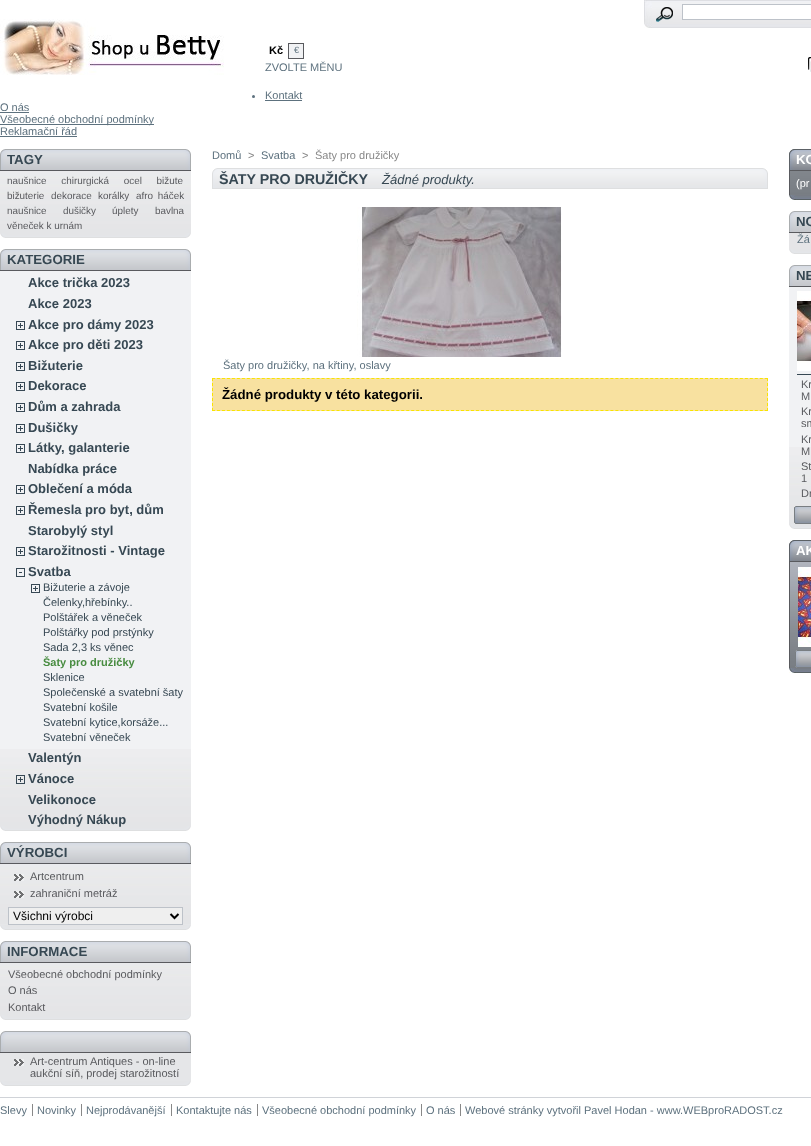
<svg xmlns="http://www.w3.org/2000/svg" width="811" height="1146">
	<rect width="100%" height="100%" fill="#FFFFFF" />
	<image x="0" y="19" width="224" height="56" href="assets/img1.png" />
	<image x="644" y="0" width="167" height="28" href="assets/img2.png" />
	<image x="656" y="7" width="17" height="15" href="assets/img3.png" />
	<rect x="682.5" y="4.5" width="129" height="15" fill="#FFFFFF" stroke="#BDC2C9" />
	<text x="269" y="54" font-family="Liberation Sans" font-size="11" font-weight="700" fill="#000000">Kč</text>
	<rect x="288.5" y="43.5" width="15" height="15" fill="#F1F2F4" stroke="#595A5E" />
	<text x="294" y="53" font-family="Liberation Sans" font-size="9" fill="#5D717E">€</text>
	<text x="265" y="71" font-family="Liberation Sans" font-size="11" fill="#5D717E">ZVOLTE MĚNU</text>
	<image x="808" y="57" width="3" height="15" href="assets/img4.png" />
	<circle cx="253.5" cy="96.5" r="1.5" fill="#5D717E" />
	<text x="265" y="99" font-family="Liberation Sans" font-size="11" fill="#5D717E">Kontakt</text>
	<rect x="265" y="100" width="37" height="1" fill="#5D717E" />
	<text x="0" y="111" font-family="Liberation Sans" font-size="11" fill="#5D717E">O nás</text>
	<rect x="0" y="112" width="29" height="1" fill="#5D717E" />
	<rect x="0" y="124" width="154" height="1" fill="#5D717E" />
	<g font-family="Liberation Sans" font-size="11" fill="#5D717E">
		<text x="0" y="123">Všeobecné obchodní podmínky</text>
		<text x="0" y="135">Reklamační řád</text>
	</g>
	<rect x="0" y="136" width="77" height="1" fill="#5D717E" />
	<image x="0" y="233" width="191" height="5" href="assets/img5.png" />
	<image x="0" y="149" width="191" height="21" href="assets/img6.png" />
	<rect x="0" y="170" width="191" height="1" fill="#595A5E" />
	<text x="7" y="164" font-family="Liberation Sans" font-size="13.25" font-weight="700" fill="#374853">TAGY</text>
	<image x="0" y="171" width="191" height="62" href="assets/img7.png" />
	<g font-family="Liberation Sans" font-size="9.9" fill="#595A5E">
		<text x="7" y="184" word-spacing="12">naušnice chirurgická ocel bižute</text>
		<text x="7" y="199">bižuterie</text>
		<text x="51" y="199">dekorace</text>
		<text x="98" y="199">korálky</text>
		<text x="136" y="199" word-spacing="2">afro háček</text>
		<text x="7" y="214">naušnice</text>
		<text x="63" y="214">dušičky</text>
		<text x="112" y="214">úplety</text>
		<text x="155" y="214">bavlna</text>
		<text x="7" y="229">věneček k urnám</text>
	</g>
	<image x="0" y="826" width="191" height="5" href="assets/img5.png" />
	<image x="0" y="249" width="191" height="21" href="assets/img6.png" />
	<rect x="0" y="270" width="191" height="1" fill="#595A5E" />
	<text x="7" y="264" font-family="Liberation Sans" font-size="13.25" font-weight="700" fill="#374853">KATEGORIE</text>
	<rect x="0" y="271" width="191" height="478" fill="#F1F2F4" />
	<image x="0" y="749" width="191" height="77" href="assets/img8.png" />
	<g font-family="Liberation Sans" font-size="13" font-weight="700" fill="#374853">
		<text x="28" y="287">Akce trička 2023</text>
		<text x="28" y="308">Akce 2023</text>
	</g>
	<image x="16" y="321" width="9" height="9" href="assets/img9.png" />
	<text x="28" y="329" font-family="Liberation Sans" font-size="13" font-weight="700" fill="#374853">Akce pro dámy 2023</text>
	<image x="16" y="341" width="9" height="9" href="assets/img9.png" />
	<text x="28" y="349" font-family="Liberation Sans" font-size="13" font-weight="700" fill="#374853">Akce pro děti 2023</text>
	<image x="16" y="362" width="9" height="9" href="assets/img9.png" />
	<text x="28" y="370" font-family="Liberation Sans" font-size="13" font-weight="700" fill="#374853">Bižuterie</text>
	<image x="16" y="382" width="9" height="9" href="assets/img9.png" />
	<text x="28" y="390" font-family="Liberation Sans" font-size="13" font-weight="700" fill="#374853">Dekorace</text>
	<image x="16" y="403" width="9" height="9" href="assets/img9.png" />
	<text x="28" y="411" font-family="Liberation Sans" font-size="13" font-weight="700" fill="#374853">Dům a zahrada</text>
	<image x="16" y="424" width="9" height="9" href="assets/img9.png" />
	<text x="28" y="432" font-family="Liberation Sans" font-size="13" font-weight="700" fill="#374853">Dušičky</text>
	<image x="16" y="444" width="9" height="9" href="assets/img9.png" />
	<g font-family="Liberation Sans" font-size="13" font-weight="700" fill="#374853">
		<text x="28" y="452">Látky, galanterie</text>
		<text x="28" y="473">Nabídka práce</text>
	</g>
	<image x="16" y="485" width="9" height="9" href="assets/img9.png" />
	<text x="28" y="493" font-family="Liberation Sans" font-size="13" font-weight="700" fill="#374853">Oblečení a móda</text>
	<image x="16" y="506" width="9" height="9" href="assets/img9.png" />
	<g font-family="Liberation Sans" font-size="13" font-weight="700" fill="#374853">
		<text x="28" y="514">Řemesla pro byt, dům</text>
		<text x="28" y="535">Starobylý styl</text>
	</g>
	<image x="16" y="547" width="9" height="9" href="assets/img9.png" />
	<text x="28" y="555" font-family="Liberation Sans" font-size="13" font-weight="700" fill="#374853">Starožitnosti - Vintage</text>
	<image x="16" y="568" width="9" height="9" href="assets/img10.png" />
	<text x="28" y="576" font-family="Liberation Sans" font-size="13" font-weight="700" fill="#374853">Svatba</text>
	<image x="31" y="584" width="9" height="9" href="assets/img9.png" />
	<g font-family="Liberation Sans" font-size="11" fill="#374853">
		<text x="43" y="591">Bižuterie a závoje</text>
		<text x="43" y="606">Čelenky,hřebínky..</text>
		<text x="43" y="621">Polštářek a věneček</text>
		<text x="43" y="636">Polštářky pod prstýnky</text>
		<text x="43" y="651">Sada 2,3 ks věnec</text>
	</g>
	<text x="43" y="666" font-family="Liberation Sans" font-size="11" font-weight="700" fill="#488C40">Šaty pro družičky</text>
	<g font-family="Liberation Sans" font-size="11" fill="#374853">
		<text x="43" y="681">Sklenice</text>
		<text x="43" y="696">Společenské a svatební šaty</text>
		<text x="43" y="711">Svatební košile</text>
		<text x="43" y="726">Svatební kytice,korsáže...</text>
		<text x="43" y="741">Svatební věneček</text>
	</g>
	<text x="28" y="762" font-family="Liberation Sans" font-size="13" font-weight="700" fill="#374853">Valentýn</text>
	<image x="16" y="775" width="9" height="9" href="assets/img11.png" />
	<g font-family="Liberation Sans" font-size="13" font-weight="700" fill="#374853">
		<text x="28" y="783">Vánoce</text>
		<text x="28" y="804">Velikonoce</text>
		<text x="28" y="824">Výhodný Nákup</text>
	</g>
	<image x="0" y="925" width="191" height="5" href="assets/img5.png" />
	<image x="0" y="842" width="191" height="21" href="assets/img6.png" />
	<rect x="0" y="863" width="191" height="1" fill="#595A5E" />
	<text x="7" y="857" font-family="Liberation Sans" font-size="13.25" font-weight="700" fill="#374853">VÝROBCI</text>
	<image x="0" y="864" width="191" height="61" href="assets/img12.png" />
	<image x="14" y="874" width="10" height="7" href="assets/img13.png" />
	<text x="30" y="880" font-family="Liberation Sans" font-size="11" fill="#595A5E">Artcentrum</text>
	<image x="14" y="891" width="10" height="7" href="assets/img13.png" />
	<text x="30" y="897" font-family="Liberation Sans" font-size="11" fill="#595A5E">zahraniční metráž</text>
	<rect x="8.5" y="907.5" width="174" height="17" fill="#EFEFEF" stroke="#BDC2C9" />
	<path d="M170.5 914L174.5 918L178.5 914" fill="none" stroke="#000000" stroke-width="2" />
	<text x="13" y="920" font-family="Liberation Sans" font-size="12" fill="#000000">Všichni výrobci</text>
	<image x="0" y="1015" width="191" height="5" href="assets/img5.png" />
	<image x="0" y="941" width="191" height="21" href="assets/img6.png" />
	<rect x="0" y="962" width="191" height="1" fill="#595A5E" />
	<text x="7" y="956" font-family="Liberation Sans" font-size="13.25" font-weight="700" fill="#374853">INFORMACE</text>
	<image x="0" y="963" width="191" height="52" href="assets/img14.png" />
	<g font-family="Liberation Sans" font-size="11" fill="#595A5E">
		<text x="8" y="978">Všeobecné obchodní podmínky</text>
		<text x="8" y="994">O nás</text>
		<text x="8" y="1011">Kontakt</text>
	</g>
	<image x="0" y="1081" width="191" height="5" href="assets/img5.png" />
	<image x="0" y="1031" width="191" height="21" href="assets/img6.png" />
	<rect x="0" y="1052" width="191" height="1" fill="#595A5E" />
	<rect x="0" y="1053" width="191" height="28" fill="#E5E6E8" />
	<image x="14" y="1059" width="10" height="7" href="assets/img13.png" />
	<g font-family="Liberation Sans" font-size="11" fill="#595A5E">
		<text x="30" y="1065">Art-centrum Antiques - on-line</text>
		<text x="30" y="1077">aukční síň, prodej starožitností</text>
	</g>
	<text x="212" y="159" font-family="Liberation Sans" font-size="11" fill="#5D717E">Domů</text>
	<text x="248" y="159" font-family="Liberation Sans" font-size="11" fill="#888888">&gt;</text>
	<text x="261" y="159" font-family="Liberation Sans" font-size="11" fill="#5D717E">Svatba</text>
	<g font-family="Liberation Sans" font-size="11" fill="#888888">
		<text x="302" y="159">&gt;</text>
		<text x="315" y="159">Šaty pro družičky</text>
	</g>
	<image x="212" y="168" width="556" height="21" href="assets/img15.png" />
	<text x="219" y="184" font-family="Liberation Sans" font-size="14.25" font-weight="700" fill="#374853">ŠATY PRO DRUŽIČKY</text>
	<text x="382" y="184" font-family="Liberation Sans" font-size="13" font-style="italic" fill="#374853">Žádné produkty.</text>
	<image x="357" y="207" width="205" height="150" href="assets/img16.png" />
	<text x="223" y="369" font-family="Liberation Sans" font-size="11" fill="#5D717E">Šaty pro družičky, na křtiny, oslavy</text>
	<rect x="212" y="378" width="556" height="33" fill="#F8E1A0" />
	<path d="M212 378.5H768" fill="none" stroke="#F9E400" stroke-dasharray="3 1.98" />
	<path d="M767.5 378V411" fill="none" stroke="#F9E400" stroke-dasharray="3 2" />
	<path d="M212 410.5H768" fill="none" stroke="#F9E400" stroke-dasharray="3 1.98" />
	<path d="M212.5 378V411" fill="none" stroke="#F9E400" stroke-dasharray="3 2" />
	<text x="222" y="399" font-family="Liberation Sans" font-size="13.25" font-weight="700" fill="#000000">Žádné produkty v této kategorii.</text>
	<image x="789" y="195" width="22" height="5" href="assets/img17.png" />
	<image x="789" y="149" width="22" height="21" href="assets/img18.png" />
	<rect x="789" y="170" width="22" height="1" fill="#595A5E" />
	<text x="796" y="164" font-family="Liberation Sans" font-size="13.25" font-weight="700" fill="#FFFFFF">KO</text>
	<image x="790" y="171" width="21" height="24" href="assets/img19.png" />
	<rect x="789" y="171" width="1" height="24" fill="#595A5E" />
	<text x="796" y="187" font-family="Liberation Sans" font-size="11" fill="#FFFFFF">(pr</text>
	<image x="789" y="249" width="22" height="5" href="assets/img20.png" />
	<image x="789" y="211" width="22" height="21" href="assets/img21.png" />
	<rect x="789" y="232" width="22" height="1" fill="#595A5E" />
	<text x="796" y="226" font-family="Liberation Sans" font-size="13.25" font-weight="700" fill="#374853">NO</text>
	<rect x="789" y="233" width="22" height="16" fill="#E5E5E7" />
	<text x="797" y="243" font-family="Liberation Sans" font-size="11" fill="#5D717E">Žá</text>
	<image x="789" y="524" width="22" height="5" href="assets/img20.png" />
	<image x="789" y="265" width="22" height="21" href="assets/img21.png" />
	<rect x="789" y="286" width="22" height="1" fill="#595A5E" />
	<text x="796" y="280" font-family="Liberation Sans" font-size="13.25" font-weight="700" fill="#374853">NE</text>
	<rect x="789" y="287" width="22" height="160" fill="#F1F2F4" />
	<image x="789" y="447" width="22" height="77" href="assets/img22.png" />
	<image x="797" y="291" width="14" height="80" href="assets/img23.png" />
	<rect x="797" y="374" width="14" height="1" fill="#374853" />
	<g font-family="Liberation Sans" font-size="11" fill="#595A5E">
		<text x="801" y="388">Kr</text>
		<text x="801" y="400">M</text>
		<text x="801" y="415">Kr</text>
		<text x="801" y="427">sm</text>
		<text x="801" y="443">Kr</text>
		<text x="801" y="455">M</text>
		<text x="801" y="470">St</text>
		<text x="801" y="482">1</text>
		<text x="801" y="497">Dr</text>
	</g>
	<image x="794" y="506" width="17" height="18" href="assets/img24.png" />
	<image x="789" y="668" width="22" height="5" href="assets/img17.png" />
	<image x="789" y="540" width="22" height="21" href="assets/img25.png" />
	<rect x="789" y="561" width="22" height="1" fill="#595A5E" />
	<text x="796" y="555" font-family="Liberation Sans" font-size="13.25" font-weight="700" fill="#FFFFFF">AK</text>
	<image x="790" y="562" width="21" height="106" href="assets/img26.png" />
	<rect x="789" y="562" width="1" height="106" fill="#595A5E" />
	<image x="798" y="567" width="13" height="80" href="assets/img27.png" />
	<image x="795" y="650" width="16" height="18" href="assets/img28.png" />
	<rect x="0" y="1097" width="811" height="1" fill="#D0D3D8" />
	<g font-family="Liberation Sans" font-size="11" fill="#5D717E">
		<text x="0" y="1114">Slevy</text>
		<text x="37" y="1114">Novinky</text>
	</g>
	<rect x="32" y="1104" width="1" height="12" fill="#888888" />
	<text x="86" y="1114" font-family="Liberation Sans" font-size="11" fill="#5D717E">Nejprodávanější</text>
	<rect x="81" y="1104" width="1" height="12" fill="#888888" />
	<text x="176" y="1114" font-family="Liberation Sans" font-size="11" fill="#5D717E">Kontaktujte nás</text>
	<rect x="171" y="1104" width="1" height="12" fill="#888888" />
	<text x="262" y="1114" font-family="Liberation Sans" font-size="11" fill="#5D717E">Všeobecné obchodní podmínky</text>
	<rect x="257" y="1104" width="1" height="12" fill="#888888" />
	<text x="426" y="1114" font-family="Liberation Sans" font-size="11" fill="#5D717E">O nás</text>
	<rect x="421" y="1104" width="1" height="12" fill="#888888" />
	<text x="465" y="1114" font-family="Liberation Sans" font-size="11" fill="#5D717E">Webové stránky vytvořil Pavel Hodan - www.WEBproRADOST.cz</text>
	<rect x="460" y="1104" width="1" height="12" fill="#888888" />
</svg>
